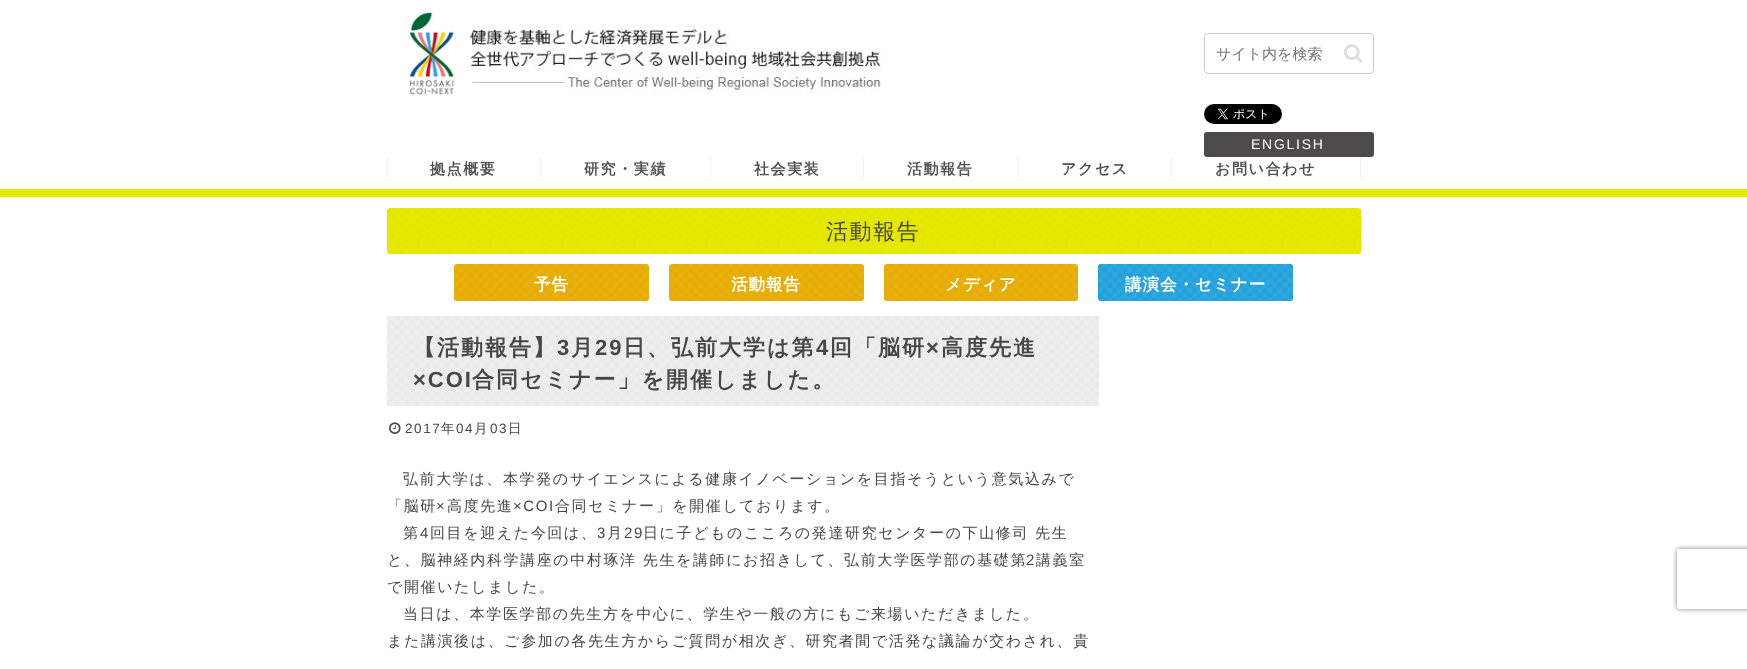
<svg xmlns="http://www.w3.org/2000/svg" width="1747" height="669">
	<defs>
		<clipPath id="clip1"><path d="M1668 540H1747V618H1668ZM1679 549H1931C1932 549 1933 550 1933 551V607C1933 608 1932 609 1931 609H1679C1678 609 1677 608 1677 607V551C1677 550 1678 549 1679 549Z" clip-rule="evenodd" /></clipPath>
	</defs>
	<rect width="100%" height="100%" fill="#FFFFFF" />
	<image x="409" y="12" width="472" height="83" href="assets/img1.png" />
	<rect x="1204.5" y="33.5" width="169" height="40" rx="3.5" fill="none" stroke="#CCCCCC" />
	<text x="1216" y="59" font-family="WenQuanYi Zen Hei" font-size="15" font-weight="500" fill="#757575">サイト内を検索</text>
	<image x="1344" y="44" width="19" height="19" href="assets/img2.png" />
	<image x="1204" y="104" width="78" height="20" href="assets/img3.png" />
	<rect x="1204" y="132" width="170" height="25" rx="3" fill="#4C4A4A" />
	<text x="1251" y="149" font-family="Liberation Sans" font-size="14" letter-spacing="1.75" fill="#FFFFFF">ENGLISH</text>
	<rect x="0" y="189" width="1747" height="8" fill="#E6E900" />
	<path d="M387.5 157V179" fill="none" stroke="#E8E7E6" stroke-dasharray="1 1" />
	<text x="430" y="174" font-family="WenQuanYi Zen Hei" font-size="15" font-weight="700" letter-spacing="1.6" fill="#505050">拠点概要</text>
	<path d="M540.5 157V179" fill="none" stroke="#E8E7E6" stroke-dasharray="1 1" />
	<text x="584" y="174" font-family="WenQuanYi Zen Hei" font-size="15" font-weight="700" letter-spacing="1.6" fill="#505050">研究・実績</text>
	<path d="M710.5 157V179" fill="none" stroke="#E8E7E6" stroke-dasharray="1 1" />
	<text x="754" y="174" font-family="WenQuanYi Zen Hei" font-size="15" font-weight="700" letter-spacing="1.6" fill="#505050">社会実装</text>
	<path d="M863.5 157V179" fill="none" stroke="#E8E7E6" stroke-dasharray="1 1" />
	<text x="907" y="174" font-family="WenQuanYi Zen Hei" font-size="15" font-weight="700" letter-spacing="1.6" fill="#505050">活動報告</text>
	<path d="M1017.5 157V179" fill="none" stroke="#E8E7E6" stroke-dasharray="1 1" />
	<text x="1061" y="174" font-family="WenQuanYi Zen Hei" font-size="15" font-weight="700" letter-spacing="1.6" fill="#505050">アクセス</text>
	<path d="M1360.5 157V179" fill="none" stroke="#E8E7E6" stroke-dasharray="1 1" />
	<path d="M1171.5 157V179" fill="none" stroke="#E8E7E6" stroke-dasharray="1 1" />
	<text x="1215" y="174" font-family="WenQuanYi Zen Hei" font-size="15" font-weight="700" letter-spacing="1.6" fill="#505050">お問い合わせ</text>
	<image x="387" y="208" width="974" height="46" href="assets/img4.png" />
	<text x="826" y="239" font-family="WenQuanYi Zen Hei" font-size="22" font-weight="500" letter-spacing="1.6" fill="#484747">活動報告</text>
	<image x="454" y="264" width="195" height="37" href="assets/img5.png" />
	<text x="534" y="290" font-family="WenQuanYi Zen Hei" font-size="16.5" font-weight="700" letter-spacing="1" fill="#FFFFFF">予告</text>
	<image x="669" y="264" width="195" height="37" href="assets/img5.png" />
	<text x="731" y="290" font-family="WenQuanYi Zen Hei" font-size="16.5" font-weight="700" letter-spacing="1" fill="#FFFFFF">活動報告</text>
	<image x="884" y="264" width="194" height="37" href="assets/img6.png" />
	<text x="945" y="290" font-family="WenQuanYi Zen Hei" font-size="16.5" font-weight="700" letter-spacing="1" fill="#FFFFFF">メディア</text>
	<image x="1098" y="264" width="195" height="37" href="assets/img5.png" />
	<image x="1098" y="264" width="195" height="37" href="assets/img7.png" />
	<text x="1125" y="290" font-family="WenQuanYi Zen Hei" font-size="16.5" font-weight="700" letter-spacing="1" fill="#FFFFFF">講演会・セミナー</text>
	<image x="387" y="316" width="712" height="90" href="assets/img8.png" />
	<text x="413" y="355" font-family="WenQuanYi Zen Hei" font-size="22" font-weight="700" letter-spacing="2" fill="#484747">【活動報告】</text>
	<text x="557" y="355" font-family="Liberation Sans" font-size="22" font-weight="700" letter-spacing="2" fill="#484747">3</text>
	<text x="571" y="355" font-family="WenQuanYi Zen Hei" font-size="22" font-weight="700" letter-spacing="2" fill="#484747">月</text>
	<text x="595" y="355" font-family="Liberation Sans" font-size="22" font-weight="700" letter-spacing="2" fill="#484747">29</text>
	<text x="623" y="355" font-family="WenQuanYi Zen Hei" font-size="22" font-weight="700" letter-spacing="2" fill="#484747">日、弘前大学は第</text>
	<text x="816" y="355" font-family="Liberation Sans" font-size="22" font-weight="700" letter-spacing="2" fill="#484747">4</text>
	<text x="830" y="355" font-family="WenQuanYi Zen Hei" font-size="22" font-weight="700" letter-spacing="2" fill="#484747">回「脳研</text>
	<text x="926" y="355" font-family="Liberation Sans" font-size="22" font-weight="700" letter-spacing="2" fill="#484747">×</text>
	<text x="941" y="355" font-family="WenQuanYi Zen Hei" font-size="22" font-weight="700" letter-spacing="2" fill="#484747">高度先進</text>
	<text x="413" y="387" font-family="Liberation Sans" font-size="22" font-weight="700" letter-spacing="2" fill="#484747">×COI</text>
	<text x="472" y="387" font-family="WenQuanYi Zen Hei" font-size="22" font-weight="700" letter-spacing="2" fill="#484747">合同セミナー」を開催しました。</text>
	<image x="389" y="422" width="12" height="12" href="assets/img9.png" />
	<text x="405" y="433" font-family="Liberation Sans" font-size="13.5" letter-spacing="1.6" fill="#484747">2017</text>
	<text x="441" y="433" font-family="WenQuanYi Zen Hei" font-size="13.5" font-weight="500" letter-spacing="1.6" fill="#484747">年</text>
	<text x="456" y="433" font-family="Liberation Sans" font-size="13.5" letter-spacing="1.6" fill="#484747">04</text>
	<text x="474" y="433" font-family="WenQuanYi Zen Hei" font-size="13.5" font-weight="500" letter-spacing="1.6" fill="#484747">月</text>
	<text x="490" y="433" font-family="Liberation Sans" font-size="13.5" letter-spacing="1.6" fill="#484747">03</text>
	<text x="508" y="433" font-family="WenQuanYi Zen Hei" font-size="13.5" font-weight="500" letter-spacing="1.6" fill="#484747">日</text>
	<g font-family="WenQuanYi Zen Hei" font-size="15" font-weight="500" letter-spacing="1.6" fill="#484747">
		<text x="403" y="484">弘前大学は、本学発のサイエンスによる健康イノベーションを目指そうという意気込みで</text>
		<text x="387" y="511">「脳研</text>
	</g>
	<text x="436" y="511" font-family="Liberation Sans" font-size="15" letter-spacing="1.6" fill="#484747">×</text>
	<text x="447" y="511" font-family="WenQuanYi Zen Hei" font-size="15" font-weight="500" letter-spacing="1.6" fill="#484747">高度先進</text>
	<text x="513" y="511" font-family="Liberation Sans" font-size="15" letter-spacing="1.6" fill="#484747">×COI</text>
	<g font-family="WenQuanYi Zen Hei" font-size="15" font-weight="500" letter-spacing="1.6" fill="#484747">
		<text x="555" y="511">合同セミナー」を開催しております。</text>
		<text x="403" y="538">第</text>
	</g>
	<text x="420" y="538" font-family="Liberation Sans" font-size="15" letter-spacing="1.6" fill="#484747">4</text>
	<text x="430" y="538" font-family="WenQuanYi Zen Hei" font-size="15" font-weight="500" letter-spacing="1.6" fill="#484747">回目を迎えた今回は、</text>
	<text x="597" y="538" font-family="Liberation Sans" font-size="15" letter-spacing="1.6" fill="#484747">3</text>
	<text x="607" y="538" font-family="WenQuanYi Zen Hei" font-size="15" font-weight="500" letter-spacing="1.6" fill="#484747">月</text>
	<text x="624" y="538" font-family="Liberation Sans" font-size="15" letter-spacing="1.6" fill="#484747">29</text>
	<g font-family="WenQuanYi Zen Hei" font-size="15" font-weight="500" letter-spacing="1.6" fill="#484747">
		<text x="643" y="538">日に子どものこころの発達研究センターの下山修司 先生</text>
		<text x="387" y="565">と、脳神経内科学講座の中村琢洋 先生を講師にお招きして、弘前大学医学部の基礎第</text>
	</g>
	<text x="1026" y="565" font-family="Liberation Sans" font-size="15" letter-spacing="1.6" fill="#484747">2</text>
	<g font-family="WenQuanYi Zen Hei" font-size="15" font-weight="500" letter-spacing="1.6" fill="#484747">
		<text x="1036" y="565">講義室</text>
		<text x="387" y="592">で開催いたしました。</text>
		<text x="403" y="619">当日は、本学医学部の先生方を中心に、学生や一般の方にもご来場いただきました。</text>
		<text x="387" y="646">また講演後は、ご参加の各先生方からご質問が相次ぎ、研究者間で活発な議論が交わされ、貴</text>
	</g>
	<g clip-path="url(#clip1)">
		<rect x="1677" y="549" width="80" height="60" rx="2" fill="#808080" filter="blur(2.5px)" />
	</g>
</svg>
